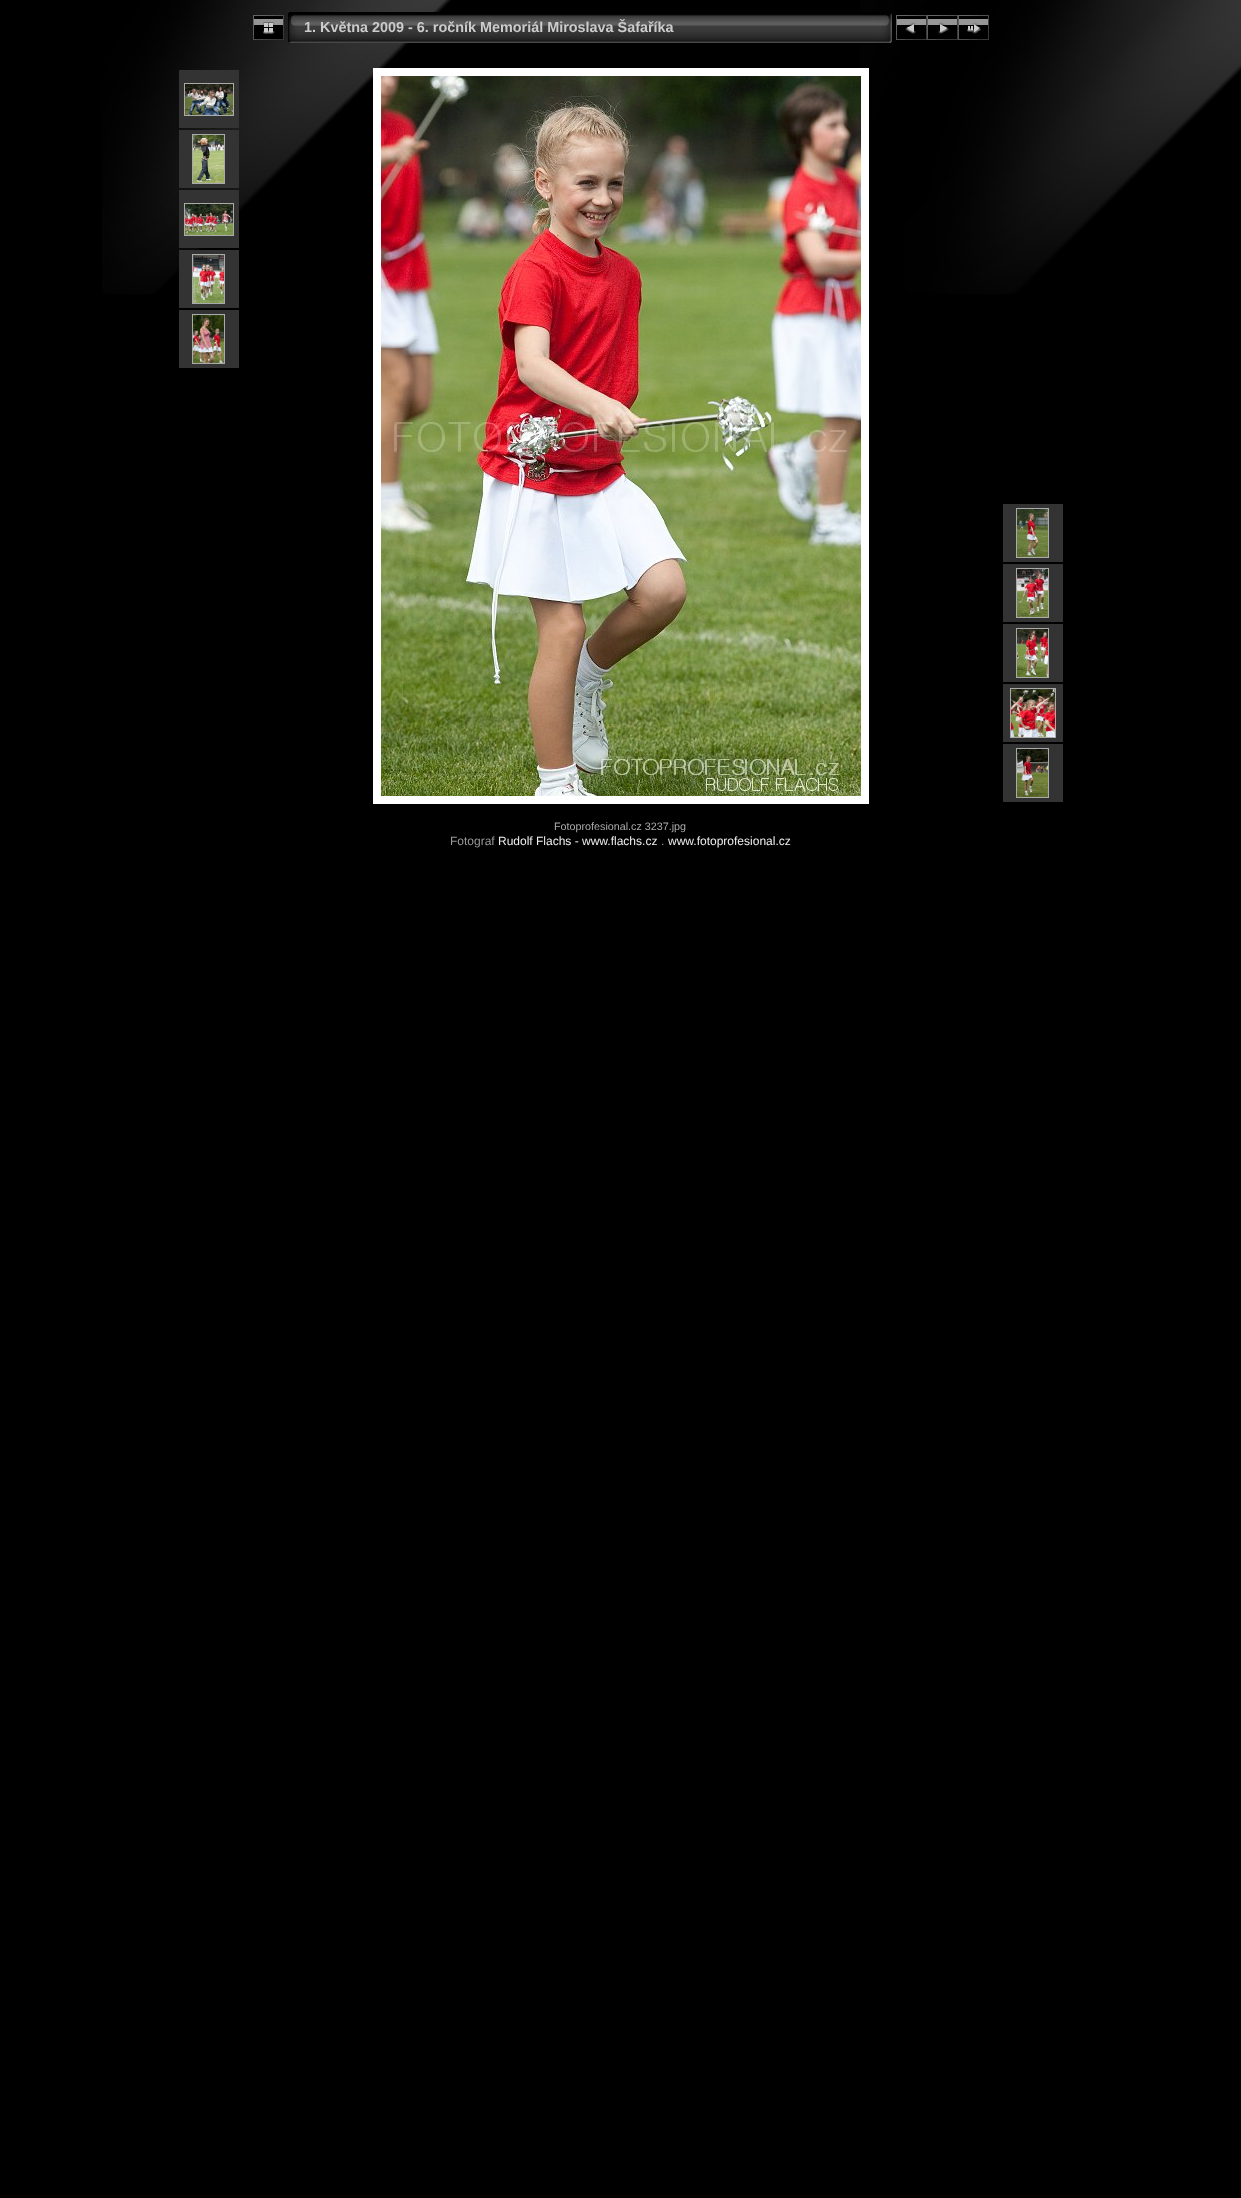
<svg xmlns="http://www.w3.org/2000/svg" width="1241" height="2198">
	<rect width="100%" height="100%" fill="#000000" />
	<image x="102" y="0" width="1139" height="294" href="assets/img1.png" />
	<image x="253" y="15" width="31" height="25" href="assets/img2.png" />
	<image x="288" y="12" width="16" height="31" href="assets/img3.png" />
	<image x="304" y="12" width="572" height="31" href="assets/img4.png" />
	<text x="304" y="32" font-family="Liberation Sans" font-size="14.4" font-weight="700" fill="#CCCCCC">1. Května 2009 - 6. ročník Memoriál Miroslava Šafaříka</text>
	<image x="876" y="13" width="16" height="30" href="assets/img5.png" />
	<image x="896" y="15" width="31" height="25" href="assets/img6.png" />
	<image x="927" y="15" width="31" height="25" href="assets/img7.png" />
	<image x="958" y="15" width="31" height="25" href="assets/img8.png" />
	<rect x="179" y="70" width="60" height="58" fill="#333333" />
	<rect x="184.5" y="83.5" width="49" height="32" fill="none" stroke="#AAAAAA" />
	<image x="185" y="84" width="48" height="31" href="assets/img9.png" />
	<rect x="179" y="130" width="60" height="58" fill="#333333" />
	<rect x="192.5" y="134.5" width="32" height="49" fill="none" stroke="#AAAAAA" />
	<image x="193" y="135" width="31" height="48" href="assets/img10.png" />
	<rect x="179" y="190" width="60" height="58" fill="#333333" />
	<rect x="184.5" y="203.5" width="49" height="32" fill="none" stroke="#AAAAAA" />
	<image x="185" y="204" width="48" height="31" href="assets/img11.png" />
	<rect x="179" y="250" width="60" height="58" fill="#333333" />
	<rect x="192.5" y="254.5" width="32" height="49" fill="none" stroke="#AAAAAA" />
	<image x="193" y="255" width="31" height="48" href="assets/img12.png" />
	<rect x="179" y="310" width="60" height="58" fill="#333333" />
	<rect x="192.5" y="314.5" width="32" height="49" fill="none" stroke="#AAAAAA" />
	<image x="193" y="315" width="31" height="48" href="assets/img13.png" />
	<rect x="377" y="72" width="488" height="728" fill="none" stroke="#FFFFFF" stroke-width="8" />
	<image x="381" y="76" width="480" height="720" href="assets/img14.png" />
	<rect x="1003" y="504" width="60" height="58" fill="#333333" />
	<rect x="1016.5" y="508.5" width="32" height="49" fill="none" stroke="#AAAAAA" />
	<image x="1017" y="509" width="31" height="48" href="assets/img15.png" />
	<rect x="1003" y="564" width="60" height="58" fill="#333333" />
	<rect x="1016.5" y="568.5" width="32" height="49" fill="none" stroke="#AAAAAA" />
	<image x="1017" y="569" width="31" height="48" href="assets/img16.png" />
	<rect x="1003" y="624" width="60" height="58" fill="#333333" />
	<rect x="1016.5" y="628.5" width="32" height="49" fill="none" stroke="#AAAAAA" />
	<image x="1017" y="629" width="31" height="48" href="assets/img17.png" />
	<rect x="1003" y="684" width="60" height="58" fill="#333333" />
	<rect x="1010.5" y="688.5" width="45" height="49" fill="none" stroke="#AAAAAA" />
	<image x="1011" y="689" width="44" height="48" href="assets/img18.png" />
	<rect x="1003" y="744" width="60" height="58" fill="#333333" />
	<rect x="1016.5" y="748.5" width="32" height="49" fill="none" stroke="#AAAAAA" />
	<image x="1017" y="749" width="31" height="48" href="assets/img19.png" />
	<text x="554" y="830" font-family="Liberation Sans" font-size="10.75" fill="#AAAAAA">Fotoprofesional.cz 3237.jpg</text>
	<text x="450" y="845" font-family="Liberation Sans" font-size="12" fill="#999999">Fotograf</text>
	<text x="498" y="845" font-family="Liberation Sans" font-size="12" fill="#EEEEEE">Rudolf Flachs - www.flachs.cz</text>
	<text x="661" y="845" font-family="Liberation Sans" font-size="12" fill="#999999">.</text>
	<text x="668" y="845" font-family="Liberation Sans" font-size="12" fill="#EEEEEE">www.fotoprofesional.cz</text>
</svg>
